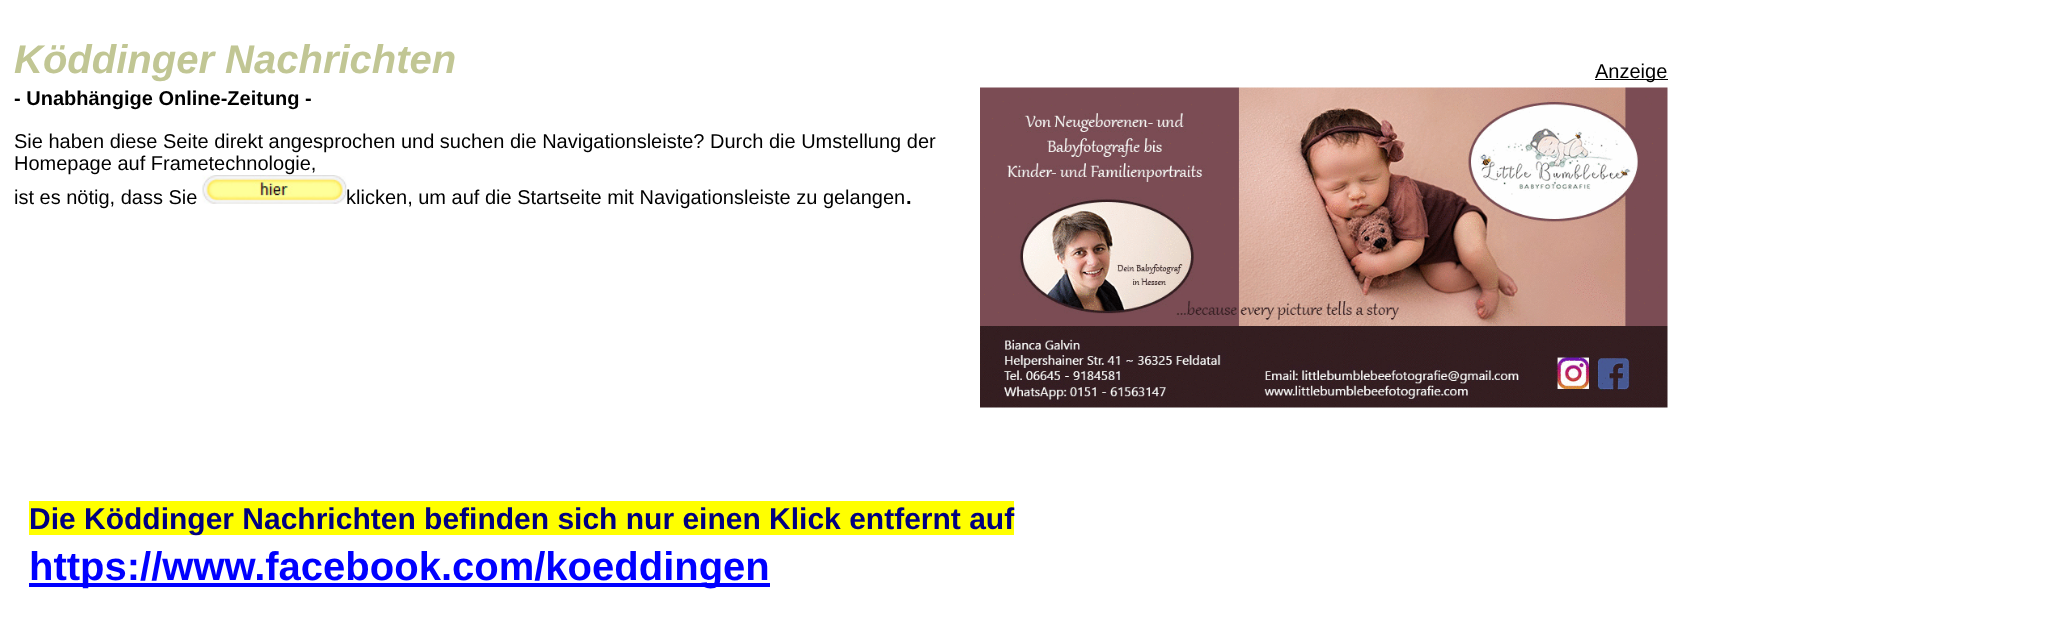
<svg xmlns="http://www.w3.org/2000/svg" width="2071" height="639">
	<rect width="100%" height="100%" fill="#FFFFFF" />
	<text x="14" y="73" font-family="Liberation Sans" font-size="40" font-weight="700" font-style="italic" fill="#C1C694">Köddinger Nachrichten</text>
	<rect x="1595" y="79" width="73" height="1" fill="#000000" />
	<text x="1595" y="78" font-family="Liberation Sans" font-size="20" fill="#000000">Anzeige</text>
	<text x="14" y="105" font-family="Liberation Sans" font-size="20" font-weight="700" fill="#000000">- Unabhängige Online-Zeitung -</text>
	<g font-family="Liberation Sans" font-size="20" fill="#000000">
		<text x="14" y="148">Sie haben diese Seite direkt angesprochen und suchen die Navigationsleiste? Durch die Umstellung der</text>
		<text x="14" y="170">Homepage auf Frametechnologie,</text>
		<text x="14" y="204">ist es nötig, dass Sie</text>
	</g>
	<image x="202" y="175" width="145" height="29" href="assets/img1.png" />
	<text x="346" y="204" font-family="Liberation Sans" font-size="20" fill="#000000">klicken, um auf die Startseite mit Navigationsleiste zu gelangen</text>
	<text x="906" y="204" font-family="Liberation Sans" font-size="20" font-weight="700" fill="#000000">.</text>
	<image x="980" y="87" width="688" height="321" href="assets/img2.png" />
	<rect x="29" y="501" width="985" height="34" fill="#FFFF00" />
	<text x="29" y="529" font-family="Liberation Sans" font-size="30" font-weight="700" fill="#000080">Die Köddinger Nachrichten befinden sich nur einen Klick entfernt auf</text>
	<rect x="29" y="583" width="741" height="4" fill="#0000FF" />
	<text x="29" y="580" font-family="Liberation Sans" font-size="40" font-weight="700" fill="#0000FF">https://www.facebook.com/koeddingen</text>
</svg>
